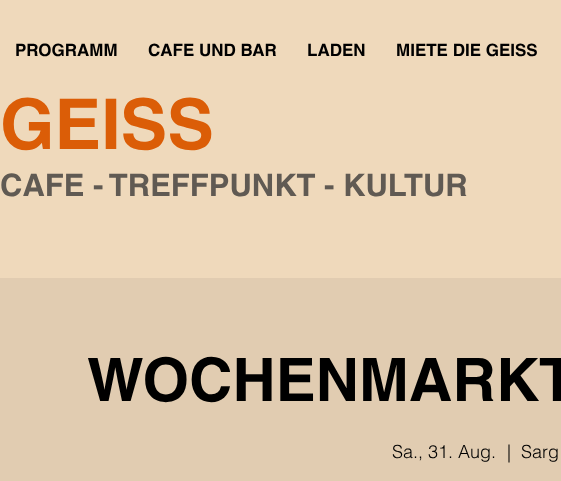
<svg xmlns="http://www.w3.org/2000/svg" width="561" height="481">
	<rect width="100%" height="100%" fill="#EFD9BB" />
	<g font-family="helvetica" font-size="17" font-weight="700" fill="#000000">
		<text x="15" y="56">PROGRAMM</text>
		<text x="148" y="56">CAFE UND BAR</text>
		<text x="307" y="56">LADEN</text>
		<text x="396" y="56">MIETE DIE GEISS</text>
	</g>
	<text x="0" y="149" font-family="helvetica" font-size="70" font-weight="700" fill="#DB5D07">GEISS</text>
	<text x="0" y="196" font-family="helvetica" font-size="31" font-weight="700" fill="#605A53">CAFE - TREFFPUNKT - KULTUR</text>
	<rect x="0" y="278" width="561" height="203" fill="#E1CCB1" />
	<text x="87" y="401" font-family="helvetica" font-size="60" font-weight="700" fill="#000000">WOCHENMARKT</text>
	<g font-family="helvetica" font-size="18" font-weight="300" fill="#000000">
		<text x="392" y="458">Sa., 31. Aug.</text>
		<text x="507" y="458">|</text>
		<text x="521" y="458">Sarg</text>
	</g>
</svg>
